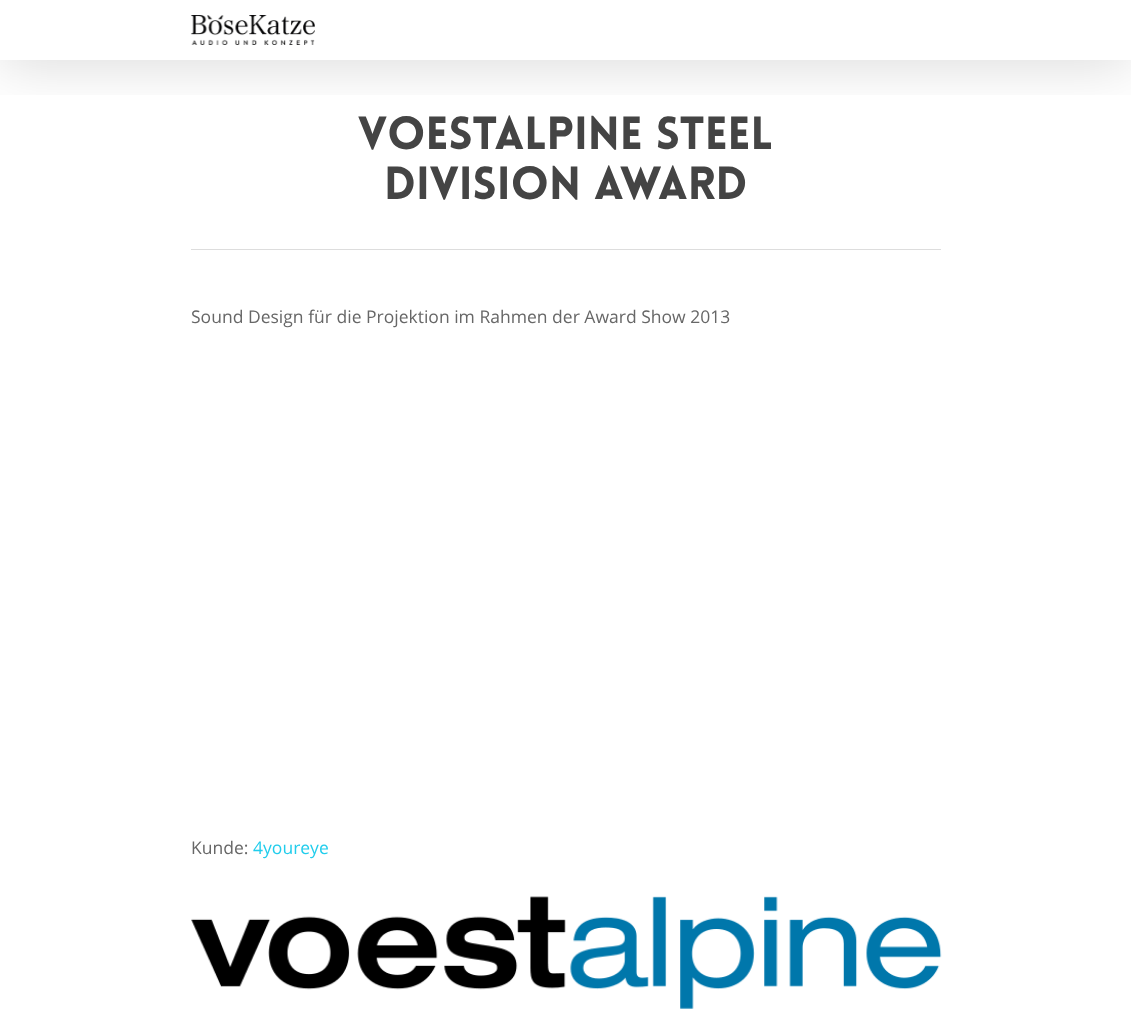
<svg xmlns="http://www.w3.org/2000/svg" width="1131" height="1032">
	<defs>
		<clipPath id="clip1"><rect x="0" y="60" width="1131" height="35" /></clipPath>
	</defs>
	<rect width="100%" height="100%" fill="#FFFFFF" />
	<g clip-path="url(#clip1)">
		<rect x="0" y="4" width="1131" height="60" fill="#000000" fill-opacity="0.15" filter="blur(28px)" />
	</g>
	<image x="190" y="15" width="125" height="30" href="assets/img1.png" />
	<rect x="191" y="249" width="750" height="1" fill="#DDDDDD" />
	<g font-family="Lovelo" font-size="45.5" font-weight="900" fill="#444444">
		<text x="358" y="149">VOESTALPINE STEEL</text>
		<text x="384" y="199">DIVISION AWARD</text>
	</g>
	<g font-family="Open Sans" font-size="17.5" fill="#676767">
		<text x="191" y="323">Sound Design für die Projektion im Rahmen der Award Show 2013</text>
		<text x="191" y="854">Kunde:</text>
	</g>
	<text x="253" y="854" font-family="Open Sans" font-size="17.5" fill="#21CDEC">4youreye</text>
	<image x="191" y="896" width="751" height="113" href="assets/img2.png" />
</svg>
